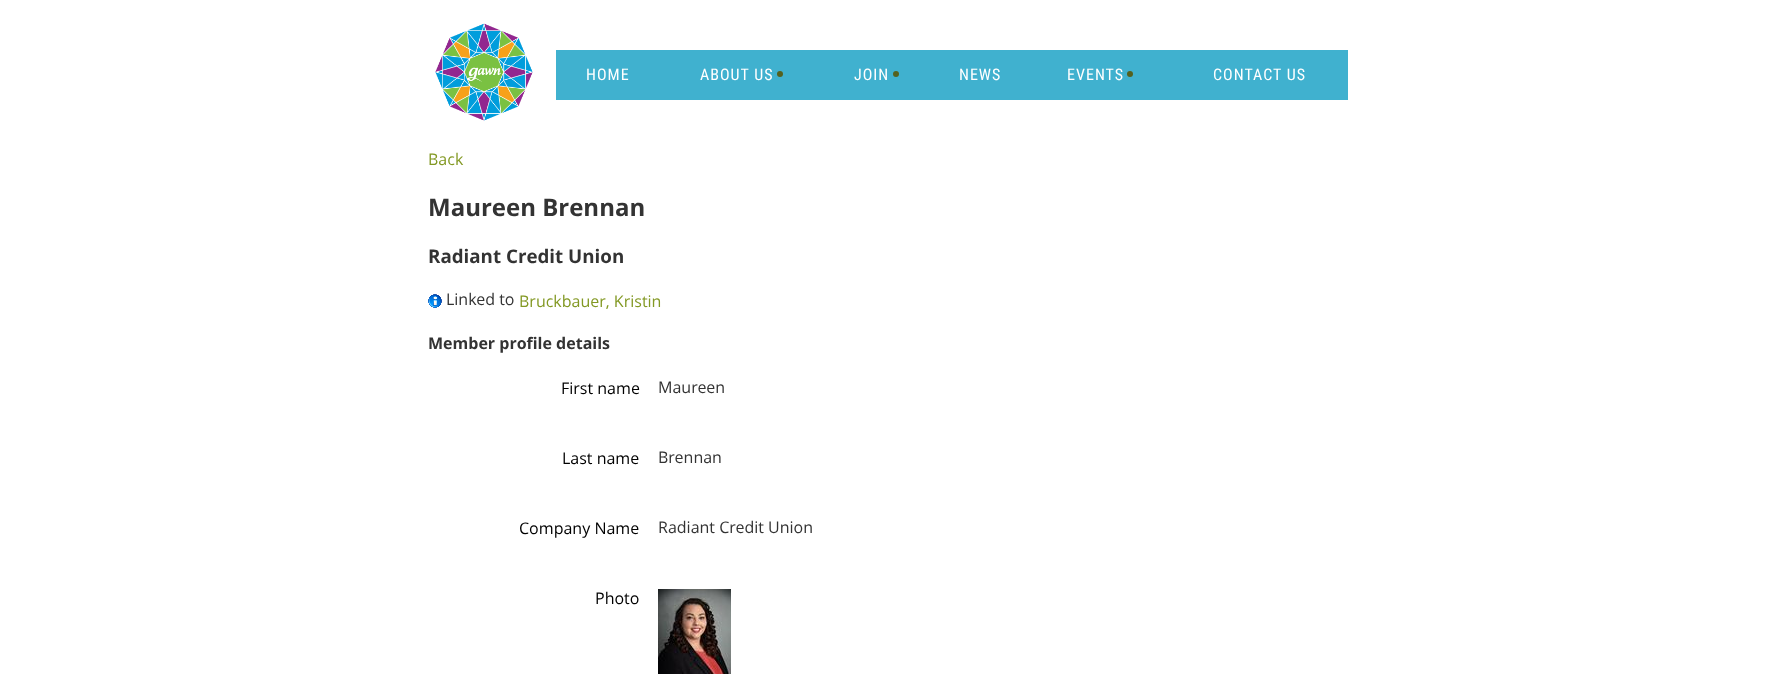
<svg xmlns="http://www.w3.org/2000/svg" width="1776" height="674">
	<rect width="100%" height="100%" fill="#FFFFFF" />
	<image x="435" y="23" width="98" height="98" href="assets/img1.png" />
	<rect x="556" y="50" width="792" height="50" fill="#40B1CF" />
	<g font-family="Roboto Condensed" font-size="16" letter-spacing="1" fill="#FFFFFF">
		<text x="586" y="80">HOME</text>
		<text x="700" y="80">ABOUT US</text>
	</g>
	<circle cx="780" cy="74" r="3" fill="#54611E" />
	<text x="854" y="80" font-family="Roboto Condensed" font-size="16" letter-spacing="1" fill="#FFFFFF">JOIN</text>
	<circle cx="896" cy="74" r="3" fill="#54611E" />
	<g font-family="Roboto Condensed" font-size="16" letter-spacing="1" fill="#FFFFFF">
		<text x="959" y="80">NEWS</text>
		<text x="1067" y="80">EVENTS</text>
	</g>
	<circle cx="1130" cy="74" r="3" fill="#54611E" />
	<text x="1213" y="80" font-family="Roboto Condensed" font-size="16" letter-spacing="1" fill="#FFFFFF">CONTACT US</text>
	<text x="428" y="165" font-family="Open Sans" font-size="16" fill="#839924">Back</text>
	<text x="428" y="216" font-family="Open Sans" font-size="24" font-weight="700" fill="#333333">Maureen Brennan</text>
	<text x="428" y="263" font-family="Open Sans" font-size="18.75" font-weight="700" fill="#333333">Radiant Credit Union</text>
	<image x="428" y="294" width="14" height="14" href="assets/img2.png" />
	<text x="446" y="305" font-family="Open Sans" font-size="16" fill="#333333">Linked to</text>
	<text x="519" y="307" font-family="Open Sans" font-size="16" fill="#839924">Bruckbauer, Kristin</text>
	<text x="428" y="349" font-family="Open Sans" font-size="16" font-weight="700" fill="#333333">Member profile details</text>
	<text x="561" y="394" font-family="Open Sans" font-size="16" fill="#000000">First name</text>
	<text x="658" y="393" font-family="Open Sans" font-size="16" fill="#333333">Maureen</text>
	<text x="562" y="464" font-family="Open Sans" font-size="16" fill="#000000">Last name</text>
	<text x="658" y="463" font-family="Open Sans" font-size="16" fill="#333333">Brennan</text>
	<text x="519" y="534" font-family="Open Sans" font-size="16" fill="#000000">Company Name</text>
	<text x="658" y="533" font-family="Open Sans" font-size="16" fill="#333333">Radiant Credit Union</text>
	<text x="595" y="604" font-family="Open Sans" font-size="16" fill="#000000">Photo</text>
	<image x="658" y="589" width="73" height="85" href="assets/img3.png" />
</svg>
